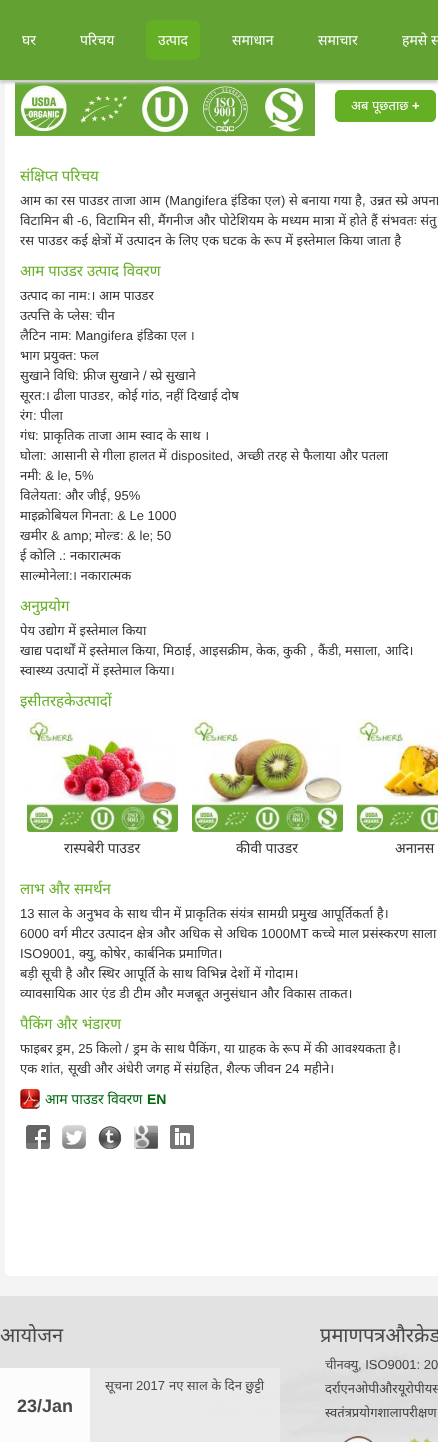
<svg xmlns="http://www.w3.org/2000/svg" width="438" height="1442">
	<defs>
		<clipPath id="clip1"><rect x="20" y="156" width="418" height="1100" /></clipPath>
	</defs>
	<rect width="100%" height="100%" fill="#F4F4F4" />
	<rect x="0" y="1296" width="438" height="146" fill="#E2E2E2" />
	<image x="195" y="1349" width="243" height="88" href="assets/img1.png" />
	<path d="M11-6H438V1276H11C7.5 1276 5 1273.5 5 1270V0C5-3.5 7.5-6 11-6Z" fill="#FFFFFF" />
	<image x="15" y="80" width="300" height="56" href="assets/img2.png" />
	<rect x="0" y="3" width="438" height="80" fill="#CCCCCC" filter="blur(1.5px)" />
	<rect x="0" y="0" width="438" height="80" fill="#63A132" />
	<g font-family="Noto Sans" font-size="14" fill="#FFFFFF">
		<text x="22" y="45">घर</text>
		<text x="80" y="45">परिचय</text>
	</g>
	<rect x="146" y="20" width="54" height="40" rx="6" fill="#65AF24" />
	<g font-family="Noto Sans" font-size="14" fill="#FFFFFF">
		<text x="158" y="45">उत्पाद</text>
		<text x="232" y="45">समाधान</text>
		<text x="318" y="45">समाचार</text>
		<text x="402" y="45">हमसे स</text>
	</g>
	<rect x="335.5" y="90.5" width="100" height="31" rx="4.5" fill="#65AF24" stroke="#65AF24" />
	<text x="351" y="110" word-spacing="0.25" font-family="Noto Sans" font-size="13" fill="#FFFFFF">अब पूछताछ</text>
	<text x="412" y="110" font-family="Liberation Sans" font-size="13" font-weight="700" fill="#FFFFFF">+</text>
	<g clip-path="url(#clip1)">
		<text x="20" y="181" font-family="Noto Sans" font-size="15" fill="#65AF24">संक्षिप्त परिचय</text>
	</g>
	<text x="20" y="205" font-family="Noto Sans" font-size="13" fill="#333333">आम का रस पाउडर ताजा आम</text>
	<text x="165" y="205" font-family="Liberation Sans" font-size="13" fill="#333333">(Mangifera</text>
	<text x="231" y="205" font-family="Noto Sans" font-size="13" fill="#333333">इंडिका एल</text>
	<text x="281" y="205" font-family="Liberation Sans" font-size="13" fill="#333333">)</text>
	<text x="289" y="205" font-family="Noto Sans" font-size="13" fill="#333333">से बनाया गया है</text>
	<text x="362" y="205" font-family="Liberation Sans" font-size="13" fill="#333333">,</text>
	<g font-family="Noto Sans" font-size="13" fill="#333333">
		<text x="370" y="205">उन्नत स्प्रे अपना</text>
		<text x="20" y="225" word-spacing="0.25">विटामिन बी</text>
	</g>
	<text x="77" y="225" font-family="Liberation Sans" font-size="13" fill="#333333">-6,</text>
	<text x="96" y="225" word-spacing="0.25" font-family="Noto Sans" font-size="13" fill="#333333">विटामिन सी</text>
	<text x="151" y="225" font-family="Liberation Sans" font-size="13" fill="#333333">,</text>
	<g font-family="Noto Sans" font-size="13" fill="#333333">
		<text x="158" y="225" word-spacing="0.25">मैंगनीज और पोटेशियम के मध्यम मात्रा में होते हैं संभवतः संतु</text>
		<text x="20" y="245" word-spacing="0.25">रस पाउडर कई क्षेत्रों में उत्पादन के लिए एक घटक के रूप में इस्तेमाल किया जाता है</text>
	</g>
	<text x="20" y="276" font-family="Noto Sans" font-size="15" fill="#65AF24">आम पाउडर उत्पाद विवरण</text>
	<text x="20" y="300" word-spacing="0.25" font-family="Noto Sans" font-size="13" fill="#333333">उत्पाद का नाम । आम पाउडर</text>
	<text x="87" y="300" font-family="Liberation Sans" font-size="13" fill="#333333">:</text>
	<text x="20" y="320" word-spacing="0.25" font-family="Noto Sans" font-size="13" fill="#333333">उत्पत्ति के प्लेस</text>
	<text x="89" y="320" font-family="Liberation Sans" font-size="13" fill="#333333">:</text>
	<text x="96" y="320" font-family="Noto Sans" font-size="13" fill="#333333">चीन</text>
	<g clip-path="url(#clip1)">
		<text x="20" y="340" font-family="Noto Sans" font-size="13" fill="#333333">लैटिन</text>
	</g>
	<text x="50" y="340" font-family="Noto Sans" font-size="13" fill="#333333">नाम</text>
	<text x="68" y="340" font-family="Liberation Sans" font-size="13" fill="#333333">: Mangifera</text>
	<g font-family="Noto Sans" font-size="13" fill="#333333">
		<text x="137" y="340">इंडिका एल ।</text>
		<text x="20" y="360" word-spacing="0.25">भाग प्रयुक्त</text>
	</g>
	<text x="73" y="360" font-family="Liberation Sans" font-size="13" fill="#333333">:</text>
	<text x="80" y="360" font-family="Noto Sans" font-size="13" fill="#333333">फल</text>
	<g clip-path="url(#clip1)">
		<text x="20" y="380" font-family="Noto Sans" font-size="13" fill="#333333">सुखाने विधि</text>
	</g>
	<text x="75" y="380" font-family="Liberation Sans" font-size="13" fill="#333333">:</text>
	<text x="83" y="380" font-family="Noto Sans" font-size="13" fill="#333333">फ्रीज सुखाने</text>
	<text x="143" y="380" font-family="Liberation Sans" font-size="13" fill="#333333">/</text>
	<text x="150" y="380" font-family="Noto Sans" font-size="13" fill="#333333">स्प्रे सुखाने</text>
	<g clip-path="url(#clip1)">
		<text x="20" y="400" font-family="Noto Sans" font-size="13" fill="#333333">सूरत</text>
	</g>
	<text x="42" y="400" font-family="Liberation Sans" font-size="13" fill="#333333">:</text>
	<text x="45" y="400" font-family="Noto Sans" font-size="13" fill="#333333">। ढीला पाउडर</text>
	<text x="110" y="400" font-family="Liberation Sans" font-size="13" fill="#333333">,</text>
	<text x="118" y="400" font-family="Noto Sans" font-size="13" fill="#333333">कोई गांठ</text>
	<text x="159" y="400" font-family="Liberation Sans" font-size="13" fill="#333333">,</text>
	<text x="166" y="400" font-family="Noto Sans" font-size="13" fill="#333333">नहीं दिखाई दोष</text>
	<g clip-path="url(#clip1)">
		<text x="20" y="420" font-family="Noto Sans" font-size="13" fill="#333333">रंग</text>
	</g>
	<text x="33" y="420" font-family="Liberation Sans" font-size="13" fill="#333333">:</text>
	<text x="40" y="420" font-family="Noto Sans" font-size="13" fill="#333333">पीला</text>
	<g clip-path="url(#clip1)">
		<text x="20" y="440" font-family="Noto Sans" font-size="13" fill="#333333">गंध</text>
	</g>
	<text x="35" y="440" font-family="Liberation Sans" font-size="13" fill="#333333">:</text>
	<text x="43" y="440" word-spacing="0.25" font-family="Noto Sans" font-size="13" fill="#333333">प्राकृतिक ताजा आम स्वाद के साथ ।</text>
	<g clip-path="url(#clip1)">
		<text x="20" y="460" font-family="Noto Sans" font-size="13" fill="#333333">घोला</text>
	</g>
	<text x="43" y="460" font-family="Liberation Sans" font-size="13" fill="#333333">:</text>
	<text x="51" y="460" font-family="Noto Sans" font-size="13" fill="#333333">आसानी से गीला हालत में</text>
	<text x="171" y="460" font-family="Liberation Sans" font-size="13" fill="#333333">disposited,</text>
	<g font-family="Noto Sans" font-size="13" fill="#333333">
		<text x="237" y="460">अच्छी तरह से फैलाया और पतला</text>
		<text x="20" y="480">नमी</text>
	</g>
	<text x="38" y="480" font-family="Liberation Sans" font-size="13" fill="#333333">: &amp; le, 5%</text>
	<text x="20" y="500" font-family="Noto Sans" font-size="13" fill="#333333">विलेयता</text>
	<text x="58" y="500" font-family="Liberation Sans" font-size="13" fill="#333333">:</text>
	<text x="65" y="500" font-family="Noto Sans" font-size="13" fill="#333333">और जीई</text>
	<text x="107" y="500" font-family="Liberation Sans" font-size="13" fill="#333333">, 95%</text>
	<text x="20" y="520" font-family="Noto Sans" font-size="13" fill="#333333">माइक्रोबियल गिनता</text>
	<text x="110" y="520" font-family="Liberation Sans" font-size="13" fill="#333333">: &amp; Le 1000</text>
	<text x="20" y="540" font-family="Noto Sans" font-size="13" fill="#333333">खमीर</text>
	<text x="51" y="540" font-family="Liberation Sans" font-size="13" fill="#333333">&amp; amp;</text>
	<text x="95" y="540" font-family="Noto Sans" font-size="13" fill="#333333">मोल्ड</text>
	<text x="120" y="540" font-family="Liberation Sans" font-size="13" fill="#333333">: &amp; le; 50</text>
	<g clip-path="url(#clip1)">
		<text x="20" y="560" font-family="Noto Sans" font-size="13" fill="#333333">ई कोलि</text>
	</g>
	<text x="59" y="560" font-family="Liberation Sans" font-size="13" fill="#333333">.:</text>
	<g font-family="Noto Sans" font-size="13" fill="#333333">
		<text x="70" y="560">नकारात्मक</text>
		<text x="20" y="580">साल्मोनेला</text>
	</g>
	<text x="69" y="580" font-family="Liberation Sans" font-size="13" fill="#333333">:</text>
	<text x="72" y="580" word-spacing="0.25" font-family="Noto Sans" font-size="13" fill="#333333">। नकारात्मक</text>
	<text x="20" y="611" font-family="Noto Sans" font-size="15" fill="#65AF24">अनुप्रयोग</text>
	<g clip-path="url(#clip1)">
		<text x="20" y="635" word-spacing="0.25" font-family="Noto Sans" font-size="13" fill="#333333">पेय उद्योग में इस्तेमाल किया</text>
	</g>
	<text x="20" y="655" font-family="Noto Sans" font-size="13" fill="#333333">खाद्य पदार्थों में इस्तेमाल किया</text>
	<text x="156" y="655" font-family="Liberation Sans" font-size="13" fill="#333333">,</text>
	<text x="163" y="655" font-family="Noto Sans" font-size="13" fill="#333333">मिठाई</text>
	<text x="192" y="655" font-family="Liberation Sans" font-size="13" fill="#333333">,</text>
	<text x="199" y="655" font-family="Noto Sans" font-size="13" fill="#333333">आइसक्रीम</text>
	<text x="249" y="655" font-family="Liberation Sans" font-size="13" fill="#333333">,</text>
	<text x="256" y="655" font-family="Noto Sans" font-size="13" fill="#333333">केक</text>
	<text x="276" y="655" font-family="Liberation Sans" font-size="13" fill="#333333">,</text>
	<text x="283" y="655" font-family="Noto Sans" font-size="13" fill="#333333">कुकी</text>
	<text x="310" y="655" font-family="Liberation Sans" font-size="13" fill="#333333">,</text>
	<g font-family="Noto Sans" font-size="13" fill="#333333">
		<text x="318" y="655">कैंडी</text>
		<text x="345" y="655">मसाला</text>
		<text x="385" y="655">आदि।</text>
	</g>
	<g font-family="Liberation Sans" font-size="13" fill="#333333">
		<text x="338" y="655">,</text>
		<text x="377" y="655">,</text>
	</g>
	<text x="20" y="675" word-spacing="0.25" font-family="Noto Sans" font-size="13" fill="#333333">स्वास्थ्य उत्पादों में इस्तेमाल किया।</text>
	<text x="20" y="706" font-family="Noto Sans" font-size="15" fill="#65AF24">इसीतरहकेउत्पादों</text>
	<image x="27" y="719" width="151" height="113" href="assets/img3.png" />
	<text x="64" y="853" font-family="Noto Sans" font-size="14" fill="#333333">रास्पबेरी पाउडर</text>
	<image x="192" y="719" width="151" height="113" href="assets/img4.png" />
	<text x="236" y="853" font-family="Noto Sans" font-size="14" fill="#333333">कीवी पाउडर</text>
	<image x="357" y="719" width="81" height="113" href="assets/img5.png" />
	<text x="395" y="853" font-family="Noto Sans" font-size="14" fill="#333333">अनानस</text>
	<text x="20" y="894" font-family="Noto Sans" font-size="15" fill="#65AF24">लाभ और समर्थन</text>
	<text x="20" y="918" font-family="Liberation Sans" font-size="13" fill="#333333">13</text>
	<text x="38" y="918" word-spacing="0.25" font-family="Noto Sans" font-size="13" fill="#333333">साल के अनुभव के साथ चीन में प्राकृतिक संयंत्र सामग्री प्रमुख आपूर्तिकर्ता है।</text>
	<text x="20" y="938" font-family="Liberation Sans" font-size="13" fill="#333333">6000</text>
	<text x="53" y="938" word-spacing="0.25" font-family="Noto Sans" font-size="13" fill="#333333">वर्ग मीटर उत्पादन क्षेत्र और अधिक से अधिक</text>
	<text x="261" y="938" font-family="Liberation Sans" font-size="13" fill="#333333">1000MT</text>
	<text x="312" y="938" word-spacing="0.25" font-family="Noto Sans" font-size="13" fill="#333333">कच्चे माल प्रसंस्करण साला</text>
	<text x="20" y="958" font-family="Liberation Sans" font-size="13" fill="#333333">ISO9001,</text>
	<text x="79" y="958" font-family="Noto Sans" font-size="13" fill="#333333">क्यु</text>
	<text x="93" y="958" font-family="Liberation Sans" font-size="13" fill="#333333">,</text>
	<text x="100" y="958" font-family="Noto Sans" font-size="13" fill="#333333">कोषेर</text>
	<text x="127" y="958" font-family="Liberation Sans" font-size="13" fill="#333333">,</text>
	<g font-family="Noto Sans" font-size="13" fill="#333333">
		<text x="134" y="958">कार्बनिक प्रमाणित।</text>
		<text x="20" y="978" word-spacing="0.25">बड़ी सूची है और स्थिर आपूर्ति के साथ विभिन्न देशों में गोदाम।</text>
		<text x="20" y="998" word-spacing="0.25">व्यावसायिक आर एंड डी टीम और मजबूत अनुसंधान और विकास ताकत।</text>
	</g>
	<g clip-path="url(#clip1)">
		<text x="20" y="1029" font-family="Noto Sans" font-size="15" fill="#65AF24">पैकिंग और भंडारण</text>
	</g>
	<text x="71" y="1053" font-family="Liberation Sans" font-size="13" fill="#333333">, 25</text>
	<text x="96" y="1053" font-family="Noto Sans" font-size="13" fill="#333333">किलो</text>
	<text x="125" y="1053" font-family="Liberation Sans" font-size="13" fill="#333333">/</text>
	<g font-family="Noto Sans" font-size="13" fill="#333333">
		<text x="133" y="1053">ड्रम के साथ पैकिंग</text>
		<text x="224" y="1053">या ग्राहक के रूप में की आवश्यकता है।</text>
		<text x="20" y="1053">फाइबर ड्रम</text>
	</g>
	<text x="217" y="1053" font-family="Liberation Sans" font-size="13" fill="#333333">,</text>
	<text x="20" y="1073" font-family="Noto Sans" font-size="13" fill="#333333">एक शांत</text>
	<text x="60" y="1073" font-family="Liberation Sans" font-size="13" fill="#333333">,</text>
	<text x="68" y="1073" font-family="Noto Sans" font-size="13" fill="#333333">सूखी और अंधेरी जगह में संग्रहित</text>
	<text x="219" y="1073" font-family="Liberation Sans" font-size="13" fill="#333333">,</text>
	<text x="226" y="1073" font-family="Noto Sans" font-size="13" fill="#333333">शैल्फ जीवन</text>
	<text x="285" y="1073" font-family="Liberation Sans" font-size="13" fill="#333333">24</text>
	<text x="304" y="1073" font-family="Noto Sans" font-size="13" fill="#333333">महीने।</text>
	<image x="20" y="1089" width="20" height="20" href="assets/img6.png" />
	<text x="45" y="1104" font-family="Noto Sans" font-size="14" fill="#046811">आम पाउडर विवरण</text>
	<text x="147" y="1104" font-family="Liberation Sans" font-size="14" font-weight="700" fill="#046811">EN</text>
	<image x="26" y="1125" width="24" height="24" href="assets/img7.png" />
	<image x="62" y="1125" width="24" height="24" href="assets/img8.png" />
	<image x="98" y="1126" width="24" height="23" href="assets/img9.png" />
	<image x="134" y="1125" width="24" height="24" href="assets/img10.png" />
	<image x="170" y="1125" width="24" height="24" href="assets/img11.png" />
	<text x="0" y="1342" font-family="Noto Sans" font-size="20" fill="#494949">आयोजन</text>
	<rect x="90" y="1368" width="190" height="74" fill="#EEEEEE" fill-opacity="0.7" />
	<text x="105" y="1390" font-family="Noto Sans" font-size="13" fill="#494949">सूचना</text>
	<text x="136" y="1390" font-family="Liberation Sans" font-size="13" fill="#494949">2017</text>
	<text x="169" y="1390" font-family="Noto Sans" font-size="13" fill="#494949">नए साल के दिन छुट्टी</text>
	<rect x="0" y="1368" width="90" height="74" fill="#FCFCFC" />
	<text x="17" y="1412" font-family="Liberation Sans" font-size="18" font-weight="700" fill="#494949">23/Jan</text>
	<text x="320" y="1342" font-family="Noto Sans" font-size="20" fill="#494949">प्रमाणपत्रऔरक्रेड</text>
	<text x="325" y="1369" font-family="Noto Sans" font-size="13" fill="#494949">चीनक्यु</text>
	<text x="358" y="1369" font-family="Liberation Sans" font-size="13" fill="#424242">, ISO9001: 20</text>
	<g font-family="Noto Sans" font-size="13" fill="#424242">
		<text x="325" y="1393">दर्राएनओपीऔरयूरोपीयस</text>
		<text x="325" y="1417">स्वतंत्रप्रयोगशालापरीक्षण</text>
	</g>
	<image x="344" y="1436" width="94" height="6" href="assets/img12.png" />
</svg>
